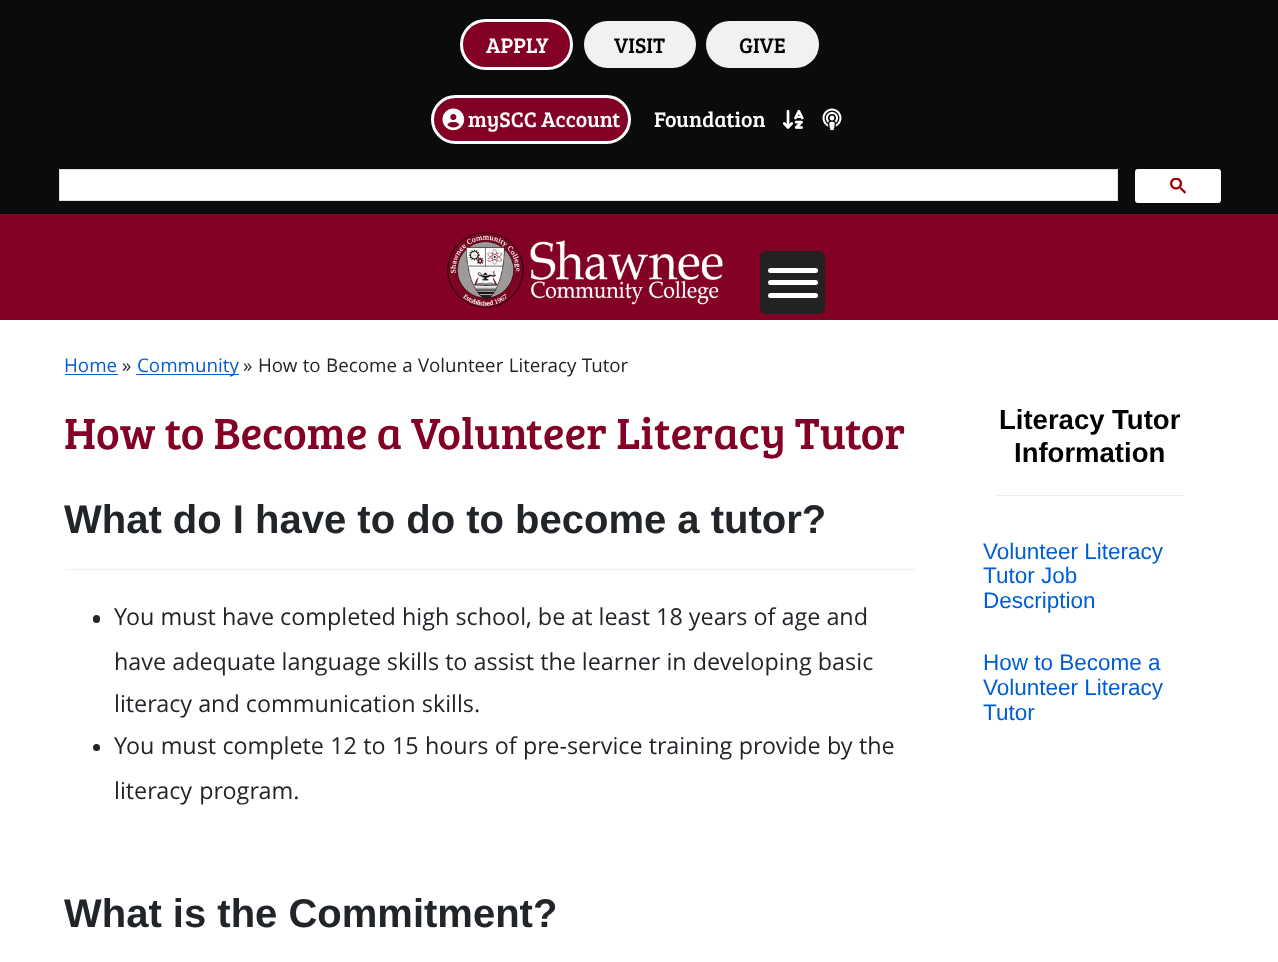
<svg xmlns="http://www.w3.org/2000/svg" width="1278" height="962">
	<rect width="100%" height="100%" fill="#FFFFFF" />
	<rect x="0" y="0" width="1278" height="214" fill="#0A0B0B" />
	<rect x="461.5" y="20.5" width="110" height="48" rx="24" fill="#820124" stroke="#FFFFFF" stroke-width="3" />
	<text x="486" y="53" font-family="Bree Serif" font-size="21.75" fill="#FFFFFF">APPLY</text>
	<rect x="584" y="21" width="112" height="47" rx="23.5" fill="#F1F1F1" />
	<text x="614" y="53" font-family="Bree Serif" font-size="21.75" fill="#000000">VISIT</text>
	<rect x="706" y="21" width="113" height="47" rx="23.5" fill="#F1F1F1" />
	<text x="739" y="53" font-family="Bree Serif" font-size="21.75" fill="#000000">GIVE</text>
	<rect x="432.5" y="96.5" width="197" height="46" rx="23" fill="#820124" stroke="#FFFFFF" stroke-width="3" />
	<image x="442" y="108" width="23" height="23" href="assets/img1.png" />
	<g font-family="Bree Serif" font-size="21.75" fill="#FFFFFF">
		<text x="468" y="127">mySCC Account</text>
		<text x="654" y="127">Foundation</text>
	</g>
	<image x="782" y="109" width="22" height="20" href="assets/img2.png" />
	<image x="822" y="108" width="20" height="23" href="assets/img3.png" />
	<rect x="59.5" y="169.5" width="1058" height="31" fill="#FFFFFF" stroke="#DFE1E5" />
	<rect x="1135.5" y="169.5" width="85" height="33" rx="2" fill="#FFFFFF" stroke="#FFFFFF" />
	<image x="1170" y="178" width="16" height="16" href="assets/img4.png" />
	<rect x="0" y="214" width="1278" height="106" fill="#820124" />
	<image x="447" y="232" width="276" height="76" href="assets/img5.png" />
	<rect x="760" y="251" width="65" height="63" rx="6" fill="#222222" />
	<rect x="768" y="268" width="50" height="5" rx="2.5" fill="#FFFFFF" />
	<rect x="768" y="280" width="50" height="5" rx="2.5" fill="#FFFFFF" />
	<rect x="768" y="293" width="50" height="5" rx="2.5" fill="#FFFFFF" />
	<text x="64" y="372" font-family="Open Sans" font-size="18.75" fill="#005DD4">Home</text>
	<rect x="65" y="374" width="53" height="1" fill="#005DD4" />
	<text x="122" y="372" font-family="Open Sans" font-size="18.75" fill="#212529">»</text>
	<rect x="136" y="374" width="103" height="1" fill="#005DD4" />
	<text x="137" y="372" font-family="Open Sans" font-size="18.75" fill="#005DD4">Community</text>
	<g font-family="Open Sans" font-size="18.75" fill="#212529">
		<text x="243" y="372">»</text>
		<text x="258" y="372" word-spacing="0.5">How to Become a Volunteer Literacy Tutor</text>
	</g>
	<text x="64" y="449" font-family="Bree Serif" font-size="45" fill="#820124">How to Become a Volunteer Literacy Tutor</text>
	<text x="64" y="533" font-family="Liberation Sans" font-size="40" font-weight="700" fill="#212529">What do I have to do to become a tutor?</text>
	<rect x="65" y="569" width="850" height="1" fill="#EEEEEE" />
	<rect x="93" y="615" width="7" height="8" rx="3.5" fill="#212529" />
	<g font-family="Open Sans" font-size="23.35" fill="#212529">
		<text x="114" y="625">You must have completed high school, be at least 18 years of age and</text>
		<text x="114" y="670">have adequate language skills to assist the learner in developing basic</text>
		<text x="114" y="712">literacy and communication skills.</text>
	</g>
	<circle cx="96.5" cy="747.5" r="3.5" fill="#212529" />
	<g font-family="Open Sans" font-size="23.35" fill="#212529">
		<text x="114" y="754" word-spacing="0.25">You must complete 12 to 15 hours of pre-service training provide by the</text>
		<text x="114" y="799" word-spacing="1">literacy program.</text>
	</g>
	<text x="64" y="927" font-family="Liberation Sans" font-size="40" font-weight="700" fill="#212529">What is the Commitment?</text>
	<g font-family="Liberation Sans" font-size="27.5" font-weight="700" fill="#000000">
		<text x="999" y="429">Literacy Tutor</text>
		<text x="1014" y="462">Information</text>
	</g>
	<rect x="996" y="495" width="188" height="1" fill="#EEEEEE" />
	<g font-family="Liberation Sans" font-size="22.5" fill="#005DD4">
		<text x="983" y="559">Volunteer Literacy</text>
		<text x="983" y="583">Tutor Job</text>
		<text x="983" y="608">Description</text>
		<text x="983" y="670">How to Become a</text>
		<text x="983" y="695">Volunteer Literacy</text>
		<text x="983" y="720">Tutor</text>
	</g>
</svg>
